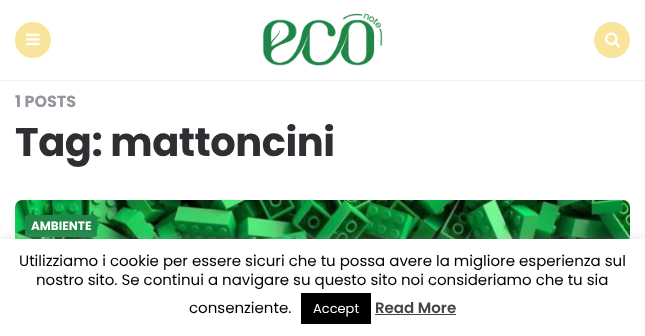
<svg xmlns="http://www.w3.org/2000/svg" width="645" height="336">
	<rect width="100%" height="100%" fill="#FFFFFF" />
	<rect x="0" y="80" width="645" height="1" fill="#F1F1F1" />
	<circle cx="33" cy="40" r="18" fill="#F9E49B" />
	<image x="26" y="33" width="14" height="13" href="assets/img1.png" />
	<image x="262" y="13" width="121" height="53" href="assets/img2.png" />
	<circle cx="612" cy="40" r="18" fill="#F9E49B" />
	<image x="605" y="32" width="15" height="16" href="assets/img3.png" />
	<text x="15" y="107" font-family="Poppins" font-size="16" font-weight="700" fill="#94979E">1 POSTS</text>
	<text x="15" y="156" font-family="Poppins" font-size="40" font-weight="700" letter-spacing="-0.5" fill="#2E2F33">Tag: mattoncini</text>
	<image x="15" y="200" width="615" height="39" href="assets/img4.png" />
	<rect x="25" y="215" width="72" height="22" rx="3" fill="#1F8748" />
	<text x="31" y="230" font-family="Poppins" font-size="12" font-weight="700" fill="#FFFFFF">AMBIENTE</text>
	<rect x="0" y="238" width="645" height="97" fill="#ACABAB" fill-opacity="0.3" filter="blur(5px)" />
	<rect x="0" y="239" width="645" height="97" fill="#FFFFFF" />
	<g font-family="Poppins" font-size="15" fill="#000000">
		<text x="19" y="266">Utilizziamo i cookie per essere sicuri che tu possa avere la migliore esperienza sul</text>
		<text x="36" y="285">nostro sito. Se continui a navigare su questo sito noi consideriamo che tu sia</text>
		<text x="189" y="313">consenziente.</text>
	</g>
	<rect x="301" y="293" width="70" height="31" fill="#000000" />
	<text x="313" y="313" font-family="Poppins" font-size="13" fill="#FFFFFF">Accept</text>
	<text x="375" y="313" font-family="Poppins" font-size="15" font-weight="600" fill="#444444">Read More</text>
	<rect x="375" y="314" width="81" height="1" fill="#444444" />
</svg>
